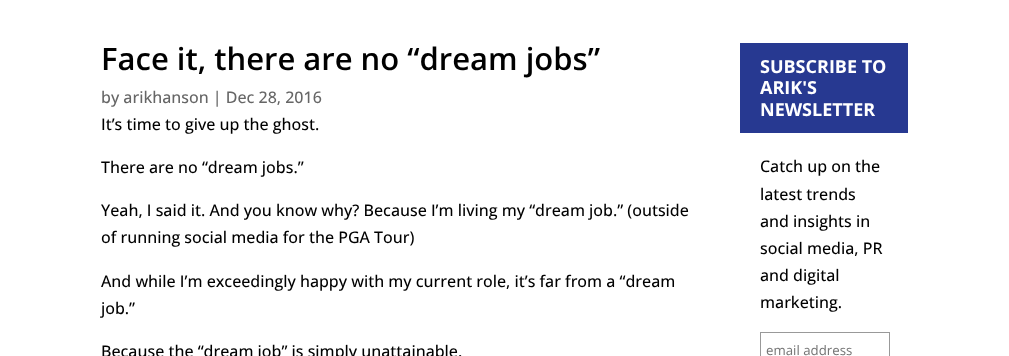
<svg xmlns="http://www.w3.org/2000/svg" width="1009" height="356">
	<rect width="100%" height="100%" fill="#FFFFFF" />
	<text x="101" y="70" font-family="Open Sans" font-size="31" font-weight="600" fill="#000000">Face it, there are no “dream jobs”</text>
	<text x="101" y="103" font-family="Open Sans" font-size="16" font-weight="500" fill="#666666">by arikhanson | Dec 28, 2016</text>
	<g font-family="Open Sans" font-size="16" font-weight="500" fill="#000000">
		<text x="101" y="130">It’s time to give up the ghost.</text>
		<text x="101" y="173">There are no “dream jobs.”</text>
		<text x="101" y="216">Yeah, I said it. And you know why? Because I’m living my “dream job.” (outside</text>
		<text x="101" y="243">of running social media for the PGA Tour)</text>
		<text x="101" y="287">And while I’m exceedingly happy with my current role, it’s far from a “dream</text>
		<text x="101" y="314">job.”</text>
		<text x="101" y="357">Because the “dream job” is simply unattainable.</text>
	</g>
	<rect x="740" y="43" width="168" height="90" fill="#273991" />
	<g font-family="Open Sans" font-size="18" font-weight="700" fill="#FFFFFF">
		<text x="760" y="73">SUBSCRIBE TO</text>
		<text x="760" y="94">ARIK'S</text>
		<text x="760" y="116">NEWSLETTER</text>
	</g>
	<g font-family="Open Sans" font-size="16" font-weight="500" fill="#000000">
		<text x="760" y="172">Catch up on the</text>
		<text x="760" y="200">latest trends</text>
		<text x="760" y="227">and insights in</text>
		<text x="760" y="254">social media, PR</text>
		<text x="760" y="281">and digital</text>
		<text x="760" y="308">marketing.</text>
	</g>
	<rect x="760.5" y="332.5" width="129" height="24" fill="none" stroke="#999999" />
	<text x="766" y="355" font-family="Open Sans" font-size="13.25" fill="#757575">email address</text>
</svg>
